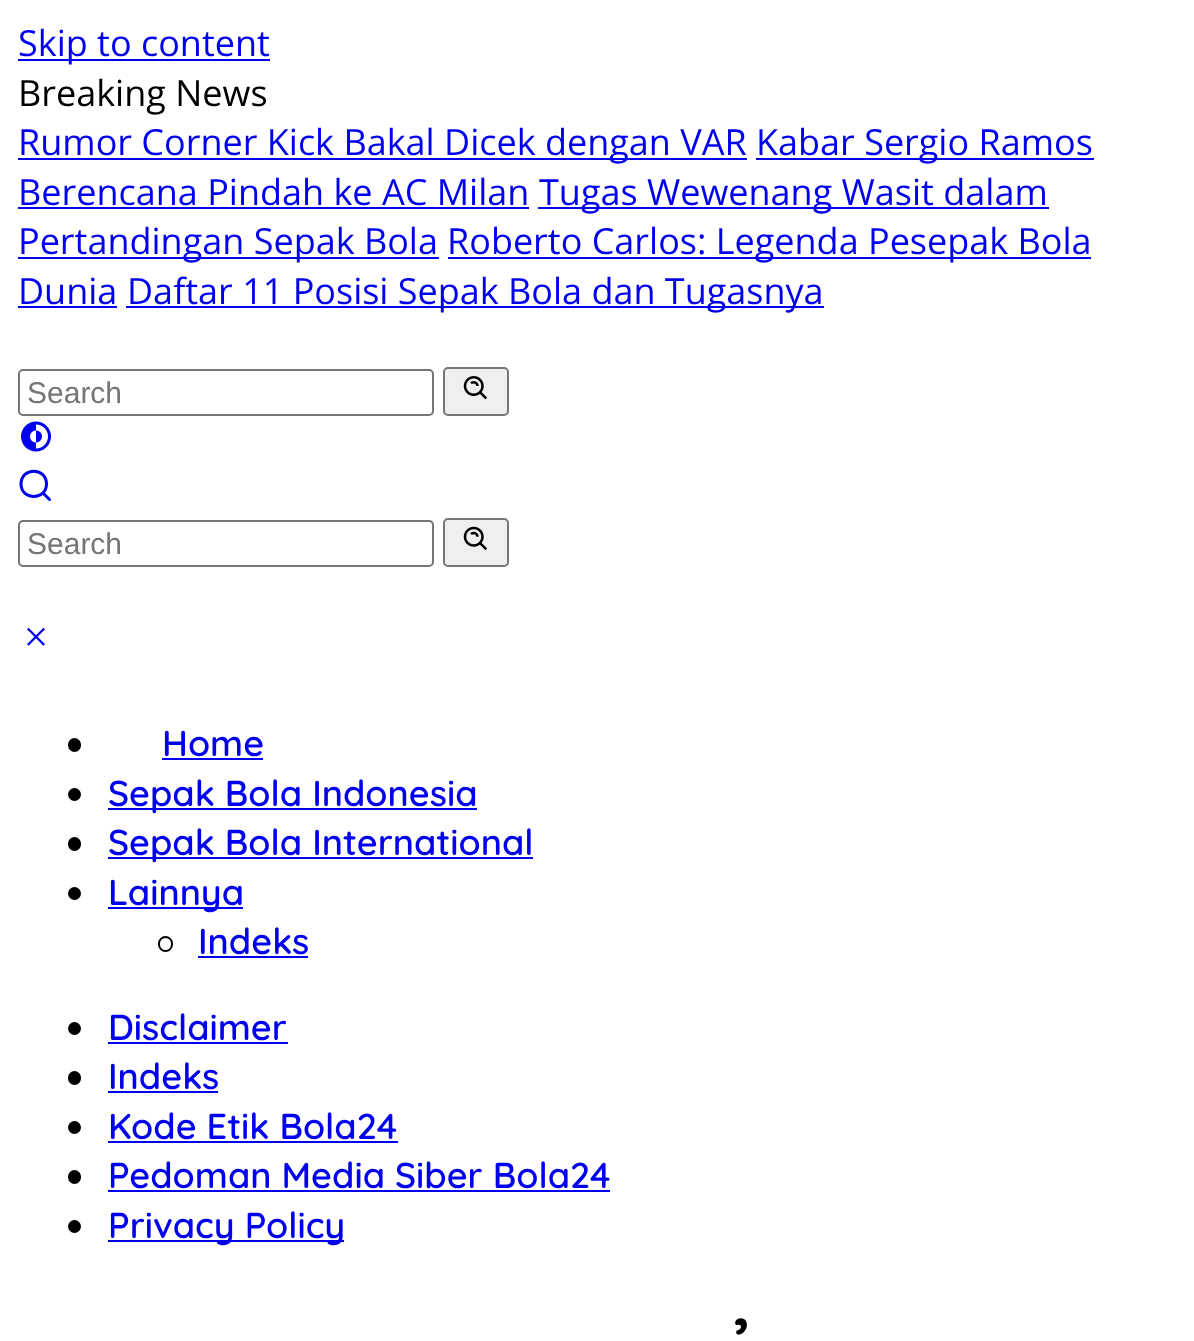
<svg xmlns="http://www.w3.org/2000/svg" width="1194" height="1341">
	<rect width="100%" height="100%" fill="#FFFFFF" />
	<rect x="18" y="59" width="252" height="2" fill="#0000EE" />
	<text x="18" y="56" font-family="Open Sans" font-size="36" fill="#0000EE">Skip to content</text>
	<text x="18" y="106" font-family="Open Sans" font-size="36" fill="#000000">Breaking News</text>
	<rect x="18" y="158" width="729" height="2" fill="#0000EE" />
	<text x="18" y="155" font-family="Open Sans" font-size="36" fill="#0000EE">Rumor Corner Kick Bakal Dicek dengan VAR</text>
	<rect x="756" y="158" width="338" height="2" fill="#0000EE" />
	<g font-family="Open Sans" font-size="36" fill="#0000EE">
		<text x="756" y="155">Kabar Sergio Ramos</text>
		<text x="18" y="205">Berencana Pindah ke AC Milan</text>
	</g>
	<rect x="18" y="207" width="511" height="2" fill="#0000EE" />
	<rect x="538" y="207" width="511" height="2" fill="#0000EE" />
	<text x="539" y="205" font-family="Open Sans" font-size="36" fill="#0000EE">Tugas Wewenang Wasit dalam</text>
	<rect x="18" y="257" width="421" height="2" fill="#0000EE" />
	<text x="18" y="254" font-family="Open Sans" font-size="36" fill="#0000EE">Pertandingan Sepak Bola</text>
	<rect x="448" y="257" width="643" height="2" fill="#0000EE" />
	<g font-family="Open Sans" font-size="36" fill="#0000EE">
		<text x="447" y="254">Roberto Carlos: Legenda Pesepak Bola</text>
		<text x="18" y="304">Dunia</text>
	</g>
	<rect x="18" y="306" width="99" height="2" fill="#0000EE" />
	<rect x="126" y="306" width="698" height="2" fill="#0000EE" />
	<text x="127" y="304" font-family="Open Sans" font-size="36" fill="#0000EE">Daftar 11 Posisi Sepak Bola dan Tugasnya</text>
	<rect x="19" y="370" width="414" height="45" rx="4" fill="none" stroke="#767676" stroke-width="2" />
	<text x="27" y="403" font-family="Liberation Sans" font-size="30" fill="#757575">Search</text>
	<rect x="444" y="368" width="64" height="47" rx="4" fill="#EFEFEF" stroke="#767676" stroke-width="2" />
	<image x="463" y="376" width="24" height="24" href="assets/img1.png" />
	<image x="21" y="421" width="30" height="31" href="assets/img2.png" />
	<path d="M49.5 499.5L43 493M46.5 484C46.5 500.5 21 500.5 21 484C21 467 46.5 467 46.5 484Z" fill="none" stroke="#0000EE" stroke-width="3" stroke-linecap="round" />
	<rect x="19" y="521" width="414" height="45" rx="4" fill="none" stroke="#767676" stroke-width="2" />
	<text x="27" y="554" font-family="Liberation Sans" font-size="30" fill="#757575">Search</text>
	<rect x="444" y="519" width="64" height="47" rx="4" fill="#EFEFEF" stroke="#767676" stroke-width="2" />
	<image x="463" y="526" width="24" height="24" href="assets/img3.png" />
	<image x="27" y="627" width="18" height="19" href="assets/img4.png" />
	<rect x="68" y="738" width="13" height="14" rx="6.5" fill="#000000" />
	<text x="162" y="756" font-family="Quicksand" font-size="36" font-weight="600" fill="#0000EE">Home</text>
	<rect x="162" y="758" width="101" height="2" fill="#0000EE" />
	<circle cx="74.5" cy="794.5" r="6.5" fill="#000000" />
	<rect x="108" y="808" width="369" height="2" fill="#0000EE" />
	<text x="108" y="806" font-family="Quicksand" font-size="36" font-weight="600" fill="#0000EE">Sepak Bola Indonesia</text>
	<rect x="68" y="837" width="13" height="14" rx="6.5" fill="#000000" />
	<rect x="108" y="857" width="425" height="2" fill="#0000EE" />
	<text x="108" y="855" font-family="Quicksand" font-size="36" font-weight="600" fill="#0000EE">Sepak Bola International</text>
	<circle cx="74.5" cy="893.5" r="6.5" fill="#000000" />
	<rect x="108" y="907" width="135" height="2" fill="#0000EE" />
	<text x="108" y="905" font-family="Quicksand" font-size="36" font-weight="600" fill="#0000EE">Lainnya</text>
	<rect x="159" y="937" width="13" height="14" rx="6.5" fill="none" stroke="#000000" stroke-width="2" />
	<text x="198" y="954" font-family="Quicksand" font-size="36" font-weight="600" fill="#0000EE">Indeks</text>
	<rect x="198" y="956" width="110" height="2" fill="#0000EE" />
	<circle cx="74.5" cy="1028.5" r="6.5" fill="#000000" />
	<text x="108" y="1040" font-family="Quicksand" font-size="36" font-weight="600" fill="#0000EE">Disclaimer</text>
	<rect x="108" y="1042" width="180" height="2" fill="#0000EE" />
	<rect x="68" y="1071" width="13" height="14" rx="6.5" fill="#000000" />
	<text x="108" y="1089" font-family="Quicksand" font-size="36" font-weight="600" fill="#0000EE">Indeks</text>
	<rect x="108" y="1091" width="110" height="2" fill="#0000EE" />
	<circle cx="74.5" cy="1127.5" r="6.5" fill="#000000" />
	<text x="108" y="1139" font-family="Quicksand" font-size="36" font-weight="600" fill="#0000EE">Kode Etik Bola24</text>
	<rect x="108" y="1141" width="290" height="2" fill="#0000EE" />
	<rect x="68" y="1170" width="13" height="14" rx="6.5" fill="#000000" />
	<text x="108" y="1188" font-family="Quicksand" font-size="36" font-weight="600" fill="#0000EE">Pedoman Media Siber Bola24</text>
	<rect x="108" y="1190" width="502" height="2" fill="#0000EE" />
	<circle cx="74.5" cy="1226.5" r="6.5" fill="#000000" />
	<rect x="108" y="1240" width="236" height="2" fill="#0000EE" />
	<text x="108" y="1238" font-family="Quicksand" font-size="36" font-weight="600" fill="#0000EE">Privacy Policy</text>
	<text x="733" y="1369" font-family="Quicksand" font-size="72" font-weight="600" fill="#000000">’</text>
</svg>
